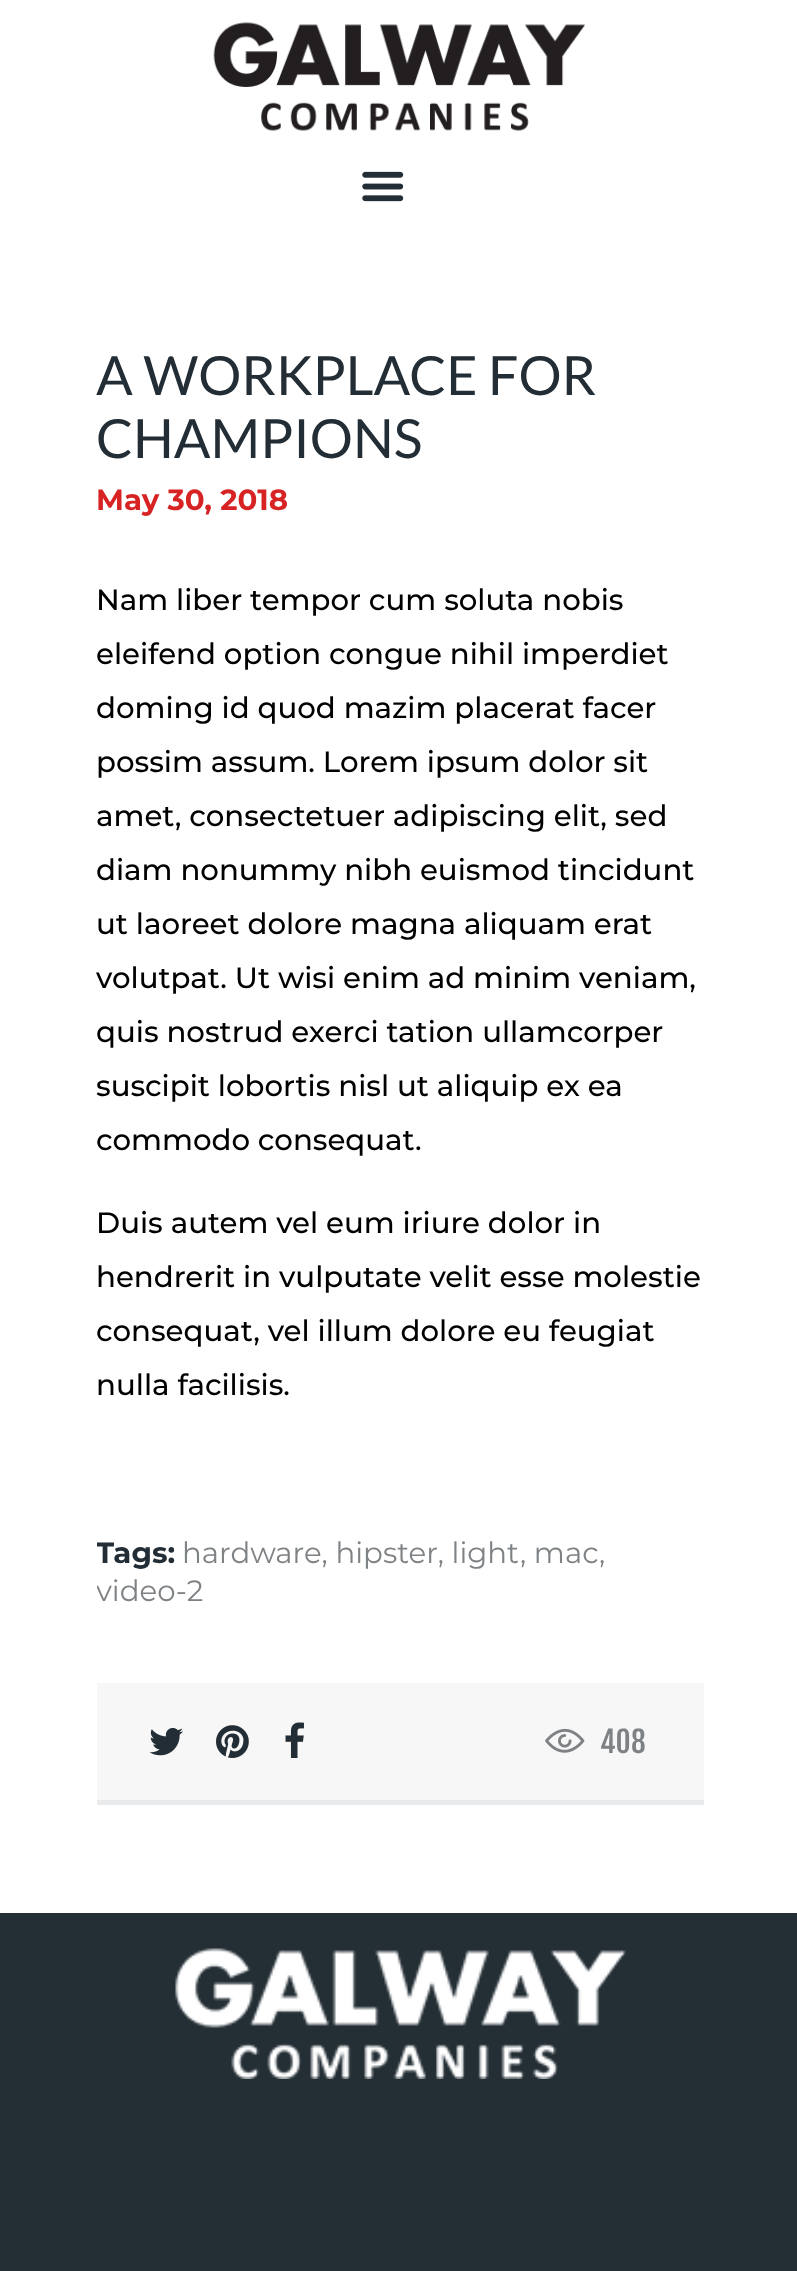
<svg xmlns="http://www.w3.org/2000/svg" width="797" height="2271">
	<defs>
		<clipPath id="clip1"><rect x="97" y="1476" width="607" height="133" /></clipPath>
	</defs>
	<rect width="100%" height="100%" fill="#FFFFFF" />
	<image x="213" y="22" width="372" height="109" href="assets/img1.png" />
	<image x="362" y="171" width="42" height="31" href="assets/img2.png" />
	<g font-family="Lato" font-size="54" fill="#222D35">
		<text x="96" y="395">A WORKPLACE FOR</text>
		<text x="96" y="458">CHAMPIONS</text>
	</g>
	<text x="96" y="510" font-family="Montserrat" font-size="29.25" font-weight="700" fill="#D72323">May 30, 2018</text>
	<g font-family="Montserrat" font-size="29.25" font-weight="500" fill="#000000">
		<text x="96" y="610">Nam liber tempor cum soluta nobis</text>
		<text x="96" y="664">eleifend option congue nihil imperdiet</text>
		<text x="96" y="718">doming id quod mazim placerat facer</text>
		<text x="96" y="772">possim assum. Lorem ipsum dolor sit</text>
		<text x="96" y="826">amet, consectetuer adipiscing elit, sed</text>
		<text x="96" y="880">diam nonummy nibh euismod tincidunt</text>
		<text x="96" y="934">ut laoreet dolore magna aliquam erat</text>
		<text x="96" y="988">volutpat. Ut wisi enim ad minim veniam,</text>
		<text x="96" y="1042">quis nostrud exerci tation ullamcorper</text>
		<text x="96" y="1096">suscipit lobortis nisl ut aliquip ex ea</text>
		<text x="96" y="1150">commodo consequat.</text>
		<text x="96" y="1233">Duis autem vel eum iriure dolor in</text>
		<text x="96" y="1287">hendrerit in vulputate velit esse molestie</text>
		<text x="96" y="1341">consequat, vel illum dolore eu feugiat</text>
		<text x="96" y="1395">nulla facilisis.</text>
	</g>
	<g clip-path="url(#clip1)">
		<text x="96" y="1563" font-family="Montserrat" font-size="29.25" font-weight="700" fill="#222D35">Tags:</text>
	</g>
	<g font-family="Montserrat" font-size="29.25" fill="#7E8285">
		<text x="182" y="1563">hardware, hipster, light</text>
		<text x="520" y="1563">, mac</text>
		<text x="599" y="1563">,</text>
	</g>
	<g clip-path="url(#clip1)">
		<text x="96" y="1601" font-family="Montserrat" font-size="29.25" fill="#7E8285">video-2</text>
	</g>
	<rect x="97" y="1683" width="607" height="117" fill="#F7F7F7" />
	<rect x="97" y="1800" width="607" height="5" fill="#E9EAEB" />
	<image x="149" y="1728" width="34" height="28" href="assets/img3.png" />
	<image x="216" y="1725" width="33" height="33" href="assets/img4.png" />
	<image x="285" y="1722" width="19" height="36" href="assets/img5.png" />
	<image x="545" y="1728" width="40" height="25" href="assets/img6.png" />
	<text x="600" y="1753" font-family="Fjalla One" font-size="29.25" fill="#7E8285">408</text>
	<rect x="0" y="1913" width="797" height="358" fill="#232E35" />
	<image x="175" y="1948" width="451" height="131" href="assets/img7.png" />
</svg>
